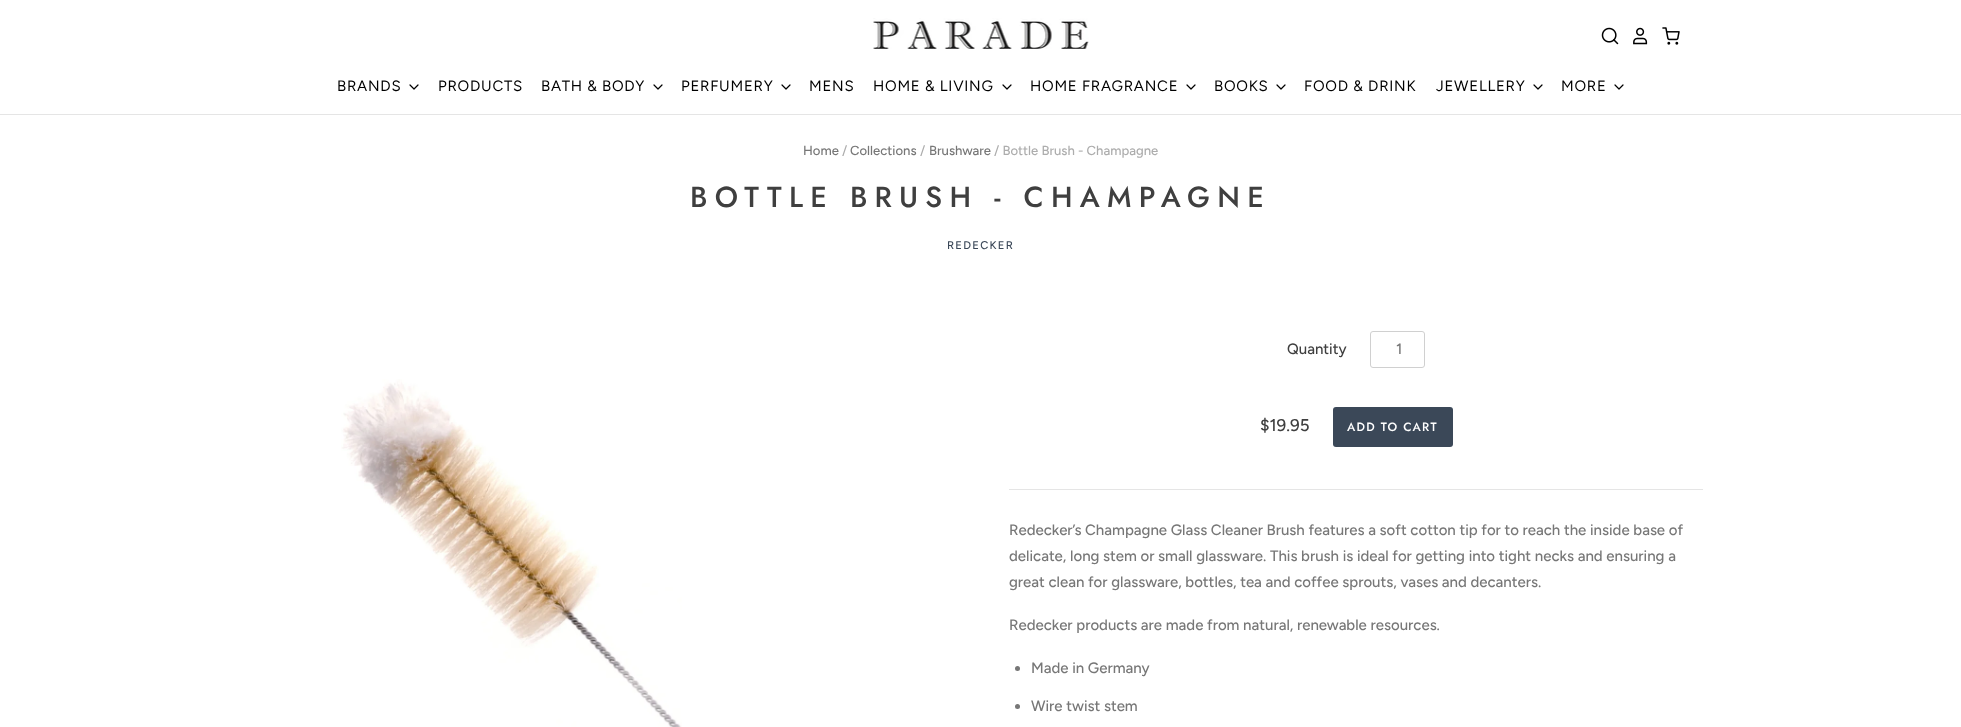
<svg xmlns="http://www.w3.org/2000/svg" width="1961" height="727">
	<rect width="100%" height="100%" fill="#FFFFFF" />
	<rect x="0" y="114" width="1961" height="1" fill="#E5E5E5" />
	<image x="873" y="18" width="216" height="31" href="assets/img1.png" />
	<image x="1601" y="27" width="18" height="18" href="assets/img2.png" />
	<image x="1633" y="27" width="15" height="18" href="assets/img3.png" />
	<image x="1662" y="27" width="18" height="18" href="assets/img4.png" />
	<text x="337" y="91" font-family="Figtree" font-size="15" letter-spacing="0.75" fill="#000000">BRANDS</text>
	<path d="M410 85L414 89L418 85" fill="none" stroke="#000000" stroke-width="1.2" stroke-linecap="round" stroke-linejoin="round" />
	<g font-family="Figtree" font-size="15" letter-spacing="0.75" fill="#000000">
		<text x="438" y="91">PRODUCTS</text>
		<text x="541" y="91">BATH &amp; BODY</text>
	</g>
	<path d="M654 85L658 89L662 85" fill="none" stroke="#000000" stroke-width="1.2" stroke-linecap="round" stroke-linejoin="round" />
	<text x="681" y="91" font-family="Figtree" font-size="15" letter-spacing="0.75" fill="#000000">PERFUMERY</text>
	<path d="M782 85L786 89L790 85" fill="none" stroke="#000000" stroke-width="1.2" stroke-linecap="round" stroke-linejoin="round" />
	<g font-family="Figtree" font-size="15" letter-spacing="0.75" fill="#000000">
		<text x="809" y="91">MENS</text>
		<text x="873" y="91">HOME &amp; LIVING</text>
	</g>
	<path d="M1003 85L1007 89L1011 85" fill="none" stroke="#000000" stroke-width="1.2" stroke-linecap="round" stroke-linejoin="round" />
	<text x="1030" y="91" font-family="Figtree" font-size="15" letter-spacing="0.75" fill="#000000">HOME FRAGRANCE</text>
	<path d="M1187 85L1191 89L1195 85" fill="none" stroke="#000000" stroke-width="1.2" stroke-linecap="round" stroke-linejoin="round" />
	<text x="1214" y="91" font-family="Figtree" font-size="15" letter-spacing="0.75" fill="#000000">BOOKS</text>
	<path d="M1277 85L1281 89L1285 85" fill="none" stroke="#000000" stroke-width="1.2" stroke-linecap="round" stroke-linejoin="round" />
	<g font-family="Figtree" font-size="15" letter-spacing="0.75" fill="#000000">
		<text x="1304" y="91">FOOD &amp; DRINK</text>
		<text x="1436" y="91">JEWELLERY</text>
	</g>
	<path d="M1534 85L1538 89L1542 85" fill="none" stroke="#000000" stroke-width="1.2" stroke-linecap="round" stroke-linejoin="round" />
	<text x="1561" y="91" font-family="Figtree" font-size="15" letter-spacing="0.75" fill="#000000">MORE</text>
	<path d="M1615 85L1619 89L1623 85" fill="none" stroke="#000000" stroke-width="1.2" stroke-linecap="round" stroke-linejoin="round" />
	<text x="803" y="155" font-family="Figtree" font-size="13.1" font-weight="500" fill="#777777">Home</text>
	<text x="842" y="155" font-family="Figtree" font-size="13.1" font-weight="500" fill="#ADADAD">/</text>
	<text x="850" y="155" font-family="Figtree" font-size="13.1" font-weight="500" fill="#777777">Collections</text>
	<text x="920" y="155" font-family="Figtree" font-size="13.1" font-weight="500" fill="#ADADAD">/</text>
	<text x="929" y="155" font-family="Figtree" font-size="13.1" font-weight="500" fill="#777777">Brushware</text>
	<text x="994" y="155" font-family="Figtree" font-size="13.1" font-weight="500" fill="#ADADAD">/ Bottle Brush - Champagne</text>
	<text x="690" y="207" font-family="Jost" font-size="29" font-weight="500" letter-spacing="7.25" fill="#3F3F3F">BOTTLE BRUSH - CHAMPAGNE</text>
	<text x="947" y="249" font-family="Figtree" font-size="11.25" font-weight="500" letter-spacing="1.25" fill="#3B4858">REDECKER</text>
	<image x="341" y="379" width="341" height="348" href="assets/img5.png" />
	<text x="1287" y="354" font-family="Figtree" font-size="15" font-weight="500" fill="#3F3F3F">Quantity</text>
	<rect x="1370.5" y="331.5" width="54" height="36" rx="2.5" fill="none" stroke="#D0D0D0" />
	<text x="1396" y="354" font-family="Figtree" font-size="15" font-weight="500" fill="#777777">1</text>
	<text x="1260" y="431" font-family="Figtree" font-size="17" font-weight="500" fill="#3F3F3F">$19.95</text>
	<rect x="1333" y="407" width="120" height="40" rx="3" fill="#3B4858" />
	<text x="1347" y="431" font-family="Jost" font-size="12" font-weight="500" letter-spacing="1.25" fill="#FFFFFF">ADD TO CART</text>
	<rect x="1009" y="489" width="694" height="1" fill="#E5E5E5" />
	<g font-family="Figtree" font-size="15" font-weight="500" fill="#777777">
		<text x="1009" y="535">Redecker’s Champagne Glass Cleaner Brush features a soft cotton tip for to reach the inside base of</text>
		<text x="1009" y="561">delicate, long stem or small glassware. This brush is ideal for getting into tight necks and ensuring a</text>
		<text x="1009" y="587">great clean for glassware, bottles, tea and coffee sprouts, vases and decanters.</text>
		<text x="1009" y="630">Redecker products are made from natural, renewable resources.</text>
	</g>
	<circle cx="1017.5" cy="668.5" r="2.5" fill="#777777" />
	<text x="1031" y="673" font-family="Figtree" font-size="15" font-weight="500" fill="#777777">Made in Germany</text>
	<circle cx="1017.5" cy="706.5" r="2.5" fill="#777777" />
	<text x="1031" y="711" font-family="Figtree" font-size="15" font-weight="500" fill="#777777">Wire twist stem</text>
</svg>
